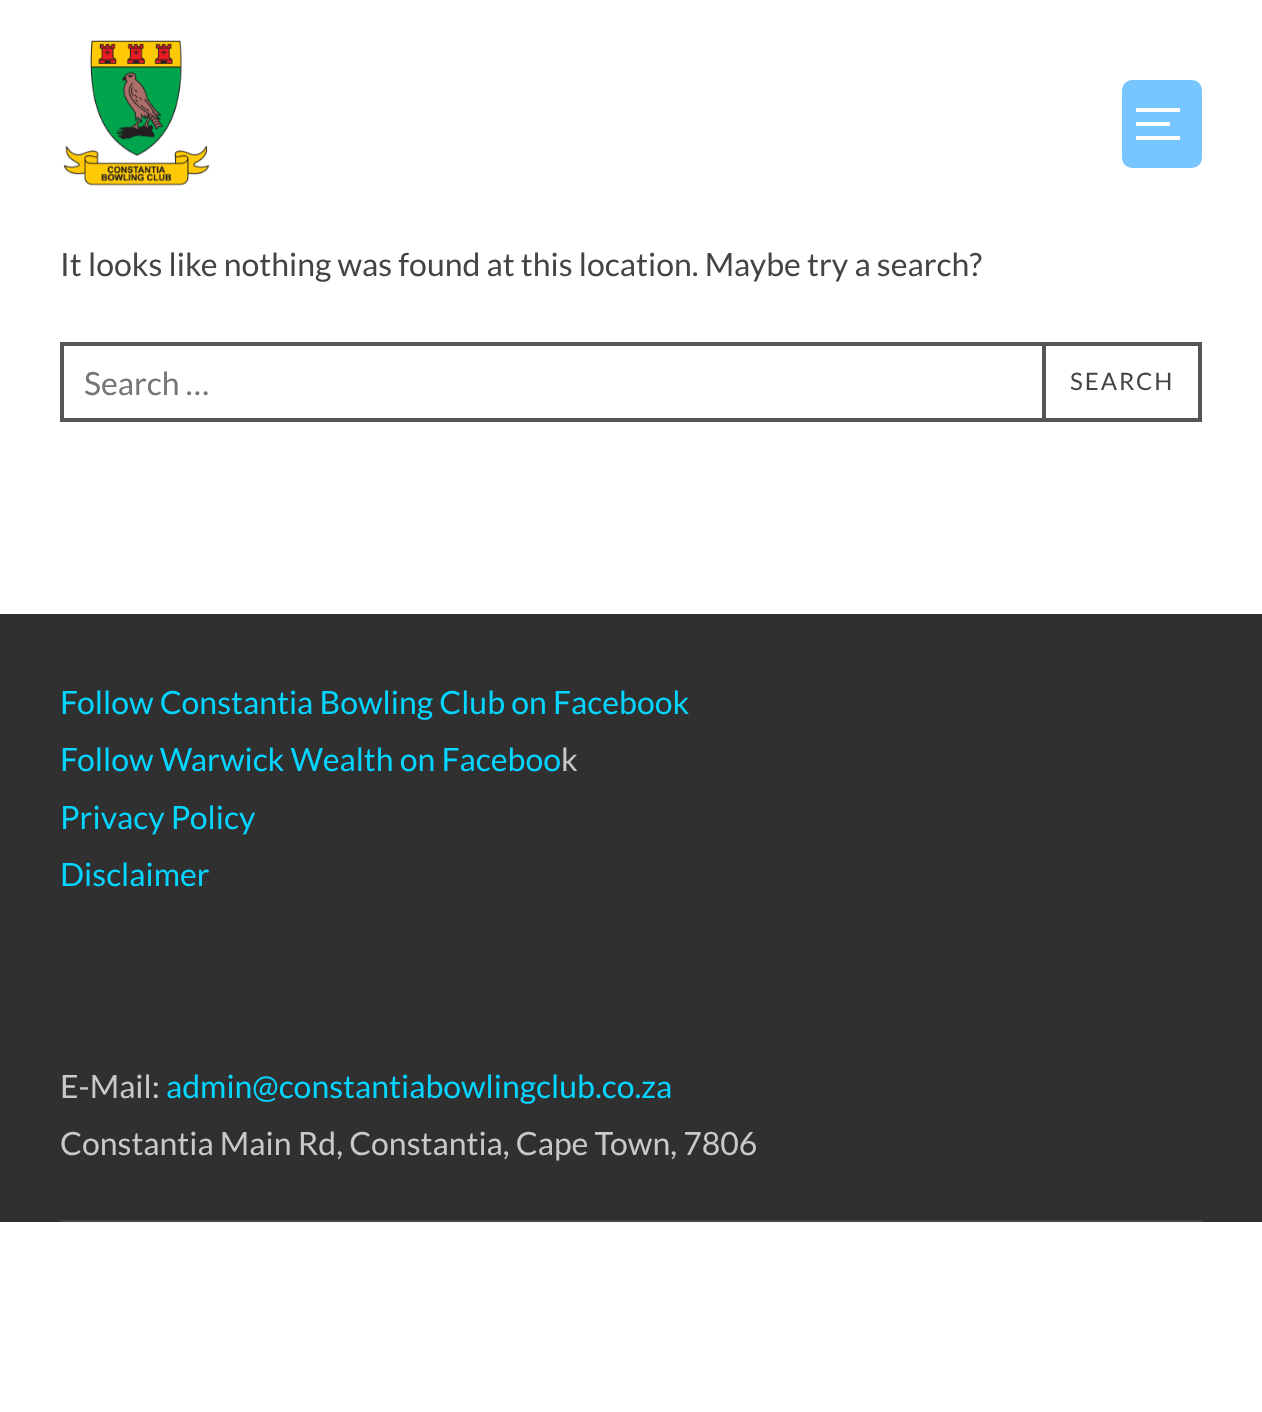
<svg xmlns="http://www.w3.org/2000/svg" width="1262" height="1412">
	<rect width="100%" height="100%" fill="#FFFFFF" />
	<image x="63" y="40" width="147" height="146" href="assets/img1.png" />
	<rect x="1122" y="80" width="80" height="88" rx="10" fill="#77C6FF" />
	<rect x="1136" y="108" width="44" height="4" fill="#FFFFFF" />
	<rect x="1136" y="122" width="34" height="4" fill="#FFFFFF" />
	<rect x="1136" y="136" width="44" height="4" fill="#FFFFFF" />
	<text x="60" y="276" font-family="Lato" font-size="32" fill="#444444">It looks like nothing was found at this location. Maybe try a search?</text>
	<rect x="62" y="344" width="1138" height="76" fill="none" stroke="#565555" stroke-width="4" />
	<text x="84" y="395" font-family="Lato" font-size="32" fill="#757575">Search …</text>
	<rect x="1044" y="344" width="156" height="76" fill="none" stroke="#565555" stroke-width="4" />
	<text x="1070" y="390" font-family="Lato" font-size="24" letter-spacing="2" fill="#444444">SEARCH</text>
	<rect x="0" y="614" width="1262" height="608" fill="#303030" />
	<g font-family="Lato" font-size="32" fill="#05D5FF">
		<text x="60" y="714">Follow Constantia Bowling Club on Facebook</text>
		<text x="60" y="771">Follow Warwick Wealth on Faceboo</text>
	</g>
	<text x="561" y="771" font-family="Lato" font-size="32" fill="#C9C9C9">k</text>
	<g font-family="Lato" font-size="32" fill="#05D5FF">
		<text x="60" y="829">Privacy Policy</text>
		<text x="60" y="886">Disclaimer</text>
	</g>
	<text x="60" y="1098" font-family="Lato" font-size="32" fill="#C9C9C9">E-Mail:</text>
	<text x="166" y="1098" font-family="Lato" font-size="32" fill="#05D5FF">admin@constantiabowlingclub.co.za</text>
	<text x="60" y="1155" font-family="Lato" font-size="32" fill="#C9C9C9">Constantia Main Rd, Constantia, Cape Town, 7806</text>
	<rect x="60" y="1220" width="1142" height="2" fill="#454545" />
</svg>
